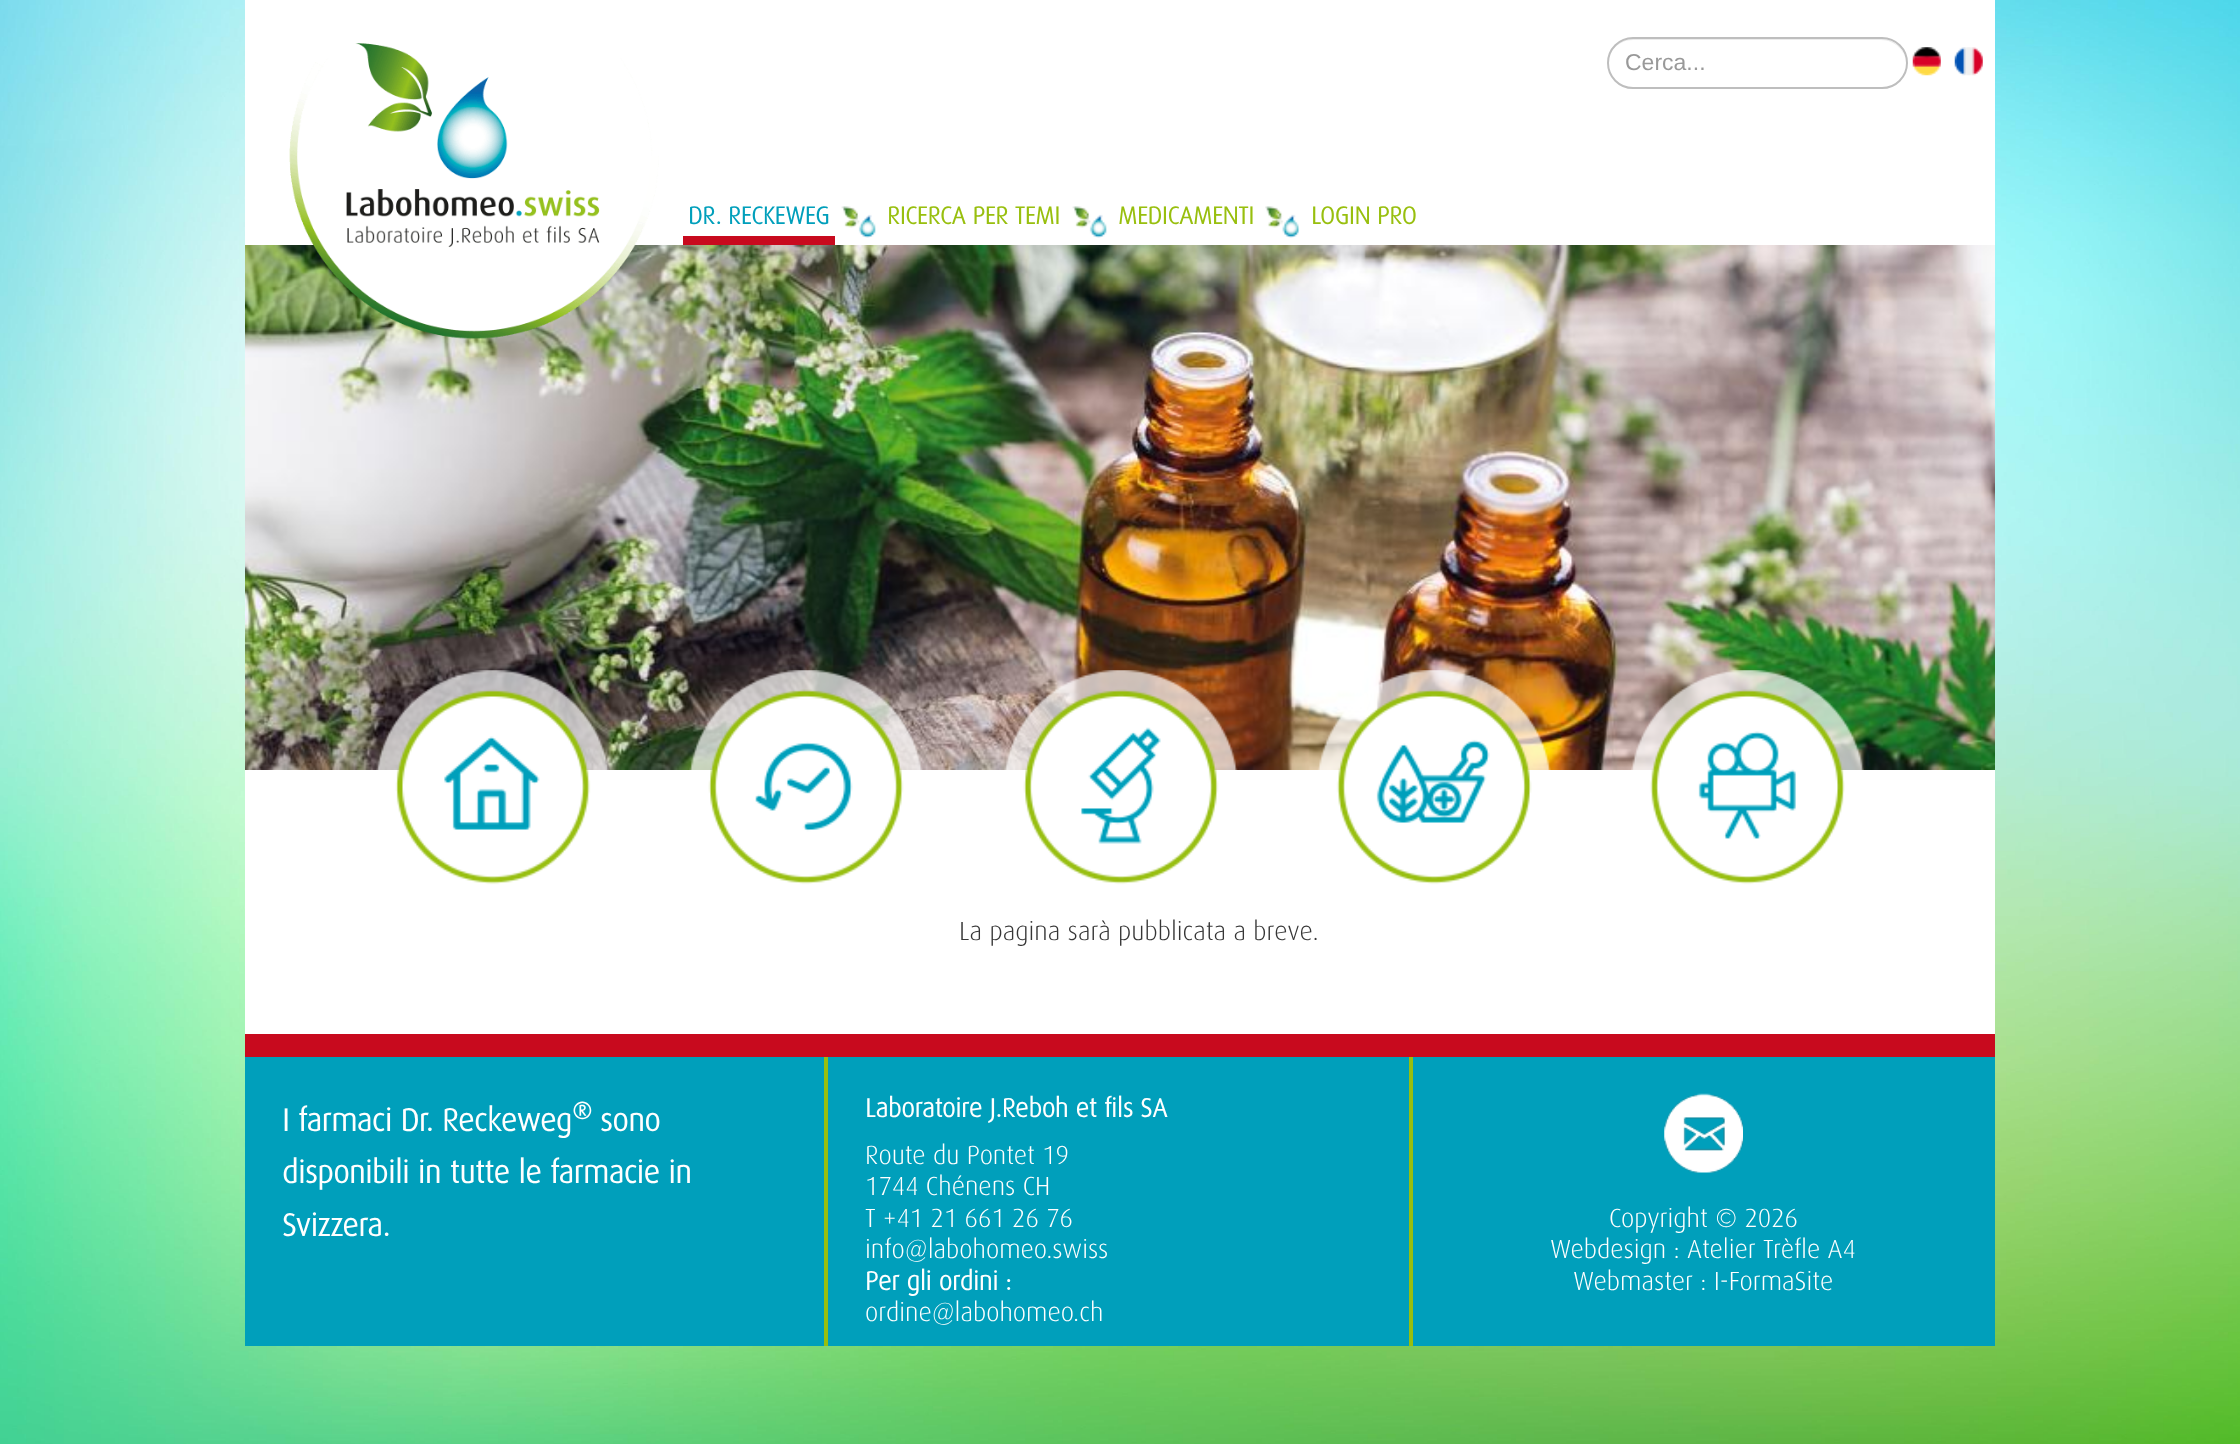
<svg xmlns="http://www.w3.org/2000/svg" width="2240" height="1444">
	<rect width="100%" height="100%" fill="#FFFFFF" />
	<image x="0" y="0" width="2240" height="1444" href="assets/img1.png" />
	<rect x="245" y="0" width="1750" height="245" fill="#FFFFFF" />
	<image x="245" y="245" width="1750" height="525" href="assets/img7.png" />
	<image x="289" y="43" width="370" height="296" href="assets/img2.png" />
	<path d="M1633 40H1881C1895 40 1906 51 1906 64C1906 50 1895 39 1882 39H1632C1619 39 1608 50 1608 64C1608 51 1619 40 1633 40Z" fill="#ECECEC" />
	<rect x="1608" y="38" width="299" height="50" rx="25" fill="none" stroke="#BEBEBE" stroke-width="2" />
	<text x="1625" y="70" font-family="Liberation Sans" font-size="23" fill="#999999">Cerca...</text>
	<image x="1912" y="47" width="29" height="29" href="assets/img3.png" />
	<image x="1954" y="47" width="29" height="29" href="assets/img4.png" />
	<rect x="683" y="236" width="152" height="9" fill="#C80A1E" />
	<text x="688" y="224" font-family="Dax" font-size="24.5" font-weight="700" fill="#009FBB">DR. RECKEWEG</text>
	<image x="841" y="206" width="35" height="32" href="assets/img5.png" />
	<text x="887" y="224" font-family="Dax" font-size="24.5" font-weight="700" fill="#98BF0E">RICERCA PER TEMI</text>
	<image x="1072" y="206" width="35" height="32" href="assets/img5.png" />
	<text x="1118" y="224" font-family="Dax" font-size="24.5" font-weight="700" fill="#98BF0E">MEDICAMENTI</text>
	<image x="1265" y="206" width="35" height="32" href="assets/img6.png" />
	<text x="1311" y="224" font-family="Dax" font-size="24.5" font-weight="700" fill="#98BF0E">LOGIN PRO</text>
	<rect x="245" y="770" width="1750" height="264" fill="#FFFFFF" />
	<image x="376" y="670" width="233" height="215" href="assets/img8.png" />
	<image x="689" y="670" width="234" height="215" href="assets/img9.png" />
	<image x="1004" y="670" width="234" height="215" href="assets/img10.png" />
	<image x="1317" y="670" width="234" height="215" href="assets/img11.png" />
	<image x="1631" y="670" width="233" height="215" href="assets/img12.png" />
	<text x="959" y="940" font-family="Dax" font-size="26.25" font-weight="300" fill="#363636">La pagina sarà pubblicata a breve.</text>
	<rect x="245" y="1034" width="1750" height="23" fill="#C80A1E" />
	<rect x="245" y="1057" width="1750" height="289" fill="#009FBB" />
	<rect x="824" y="1057" width="4" height="289" fill="#98BF0E" />
	<text x="282" y="1131" font-family="Dax" font-size="31.5" font-weight="700" fill="#FFFFFF">I farmaci Dr. Reckeweg</text>
	<text x="572" y="1119" font-family="Dax" font-size="24" font-weight="700" fill="#FFFFFF">®</text>
	<g font-family="Dax" font-size="31.5" font-weight="700" fill="#FFFFFF">
		<text x="600" y="1131">sono</text>
		<text x="282" y="1183">disponibili in tutte le farmacie in</text>
		<text x="282" y="1236">Svizzera.</text>
	</g>
	<rect x="1409" y="1057" width="4" height="289" fill="#98BF0E" />
	<text x="865" y="1117" font-family="Dax" font-size="26.25" font-weight="700" fill="#FFFFFF">Laboratoire J.Reboh et fils SA</text>
	<g font-family="Dax" font-size="26.25" font-weight="300" fill="#FFFFFF">
		<text x="865" y="1164">Route du Pontet 19</text>
		<text x="865" y="1195">1744 Chénens CH</text>
		<text x="865" y="1227">T +41 21 661 26 76</text>
		<text x="865" y="1258">info@labohomeo.swiss</text>
	</g>
	<text x="865" y="1290" font-family="Dax" font-size="26.25" font-weight="700" fill="#FFFFFF">Per gli ordini :</text>
	<text x="865" y="1321" font-family="Dax" font-size="26.25" font-weight="300" fill="#FFFFFF">ordine@labohomeo.ch</text>
	<image x="1664" y="1093" width="79" height="80" href="assets/img13.png" />
	<g font-family="Dax" font-size="26.25" font-weight="300" fill="#FFFFFF">
		<text x="1609" y="1227">Copyright © 2026</text>
		<text x="1550" y="1258">Webdesign : Atelier Trèfle A4</text>
		<text x="1573" y="1290">Webmaster : I-FormaSite</text>
	</g>
</svg>
